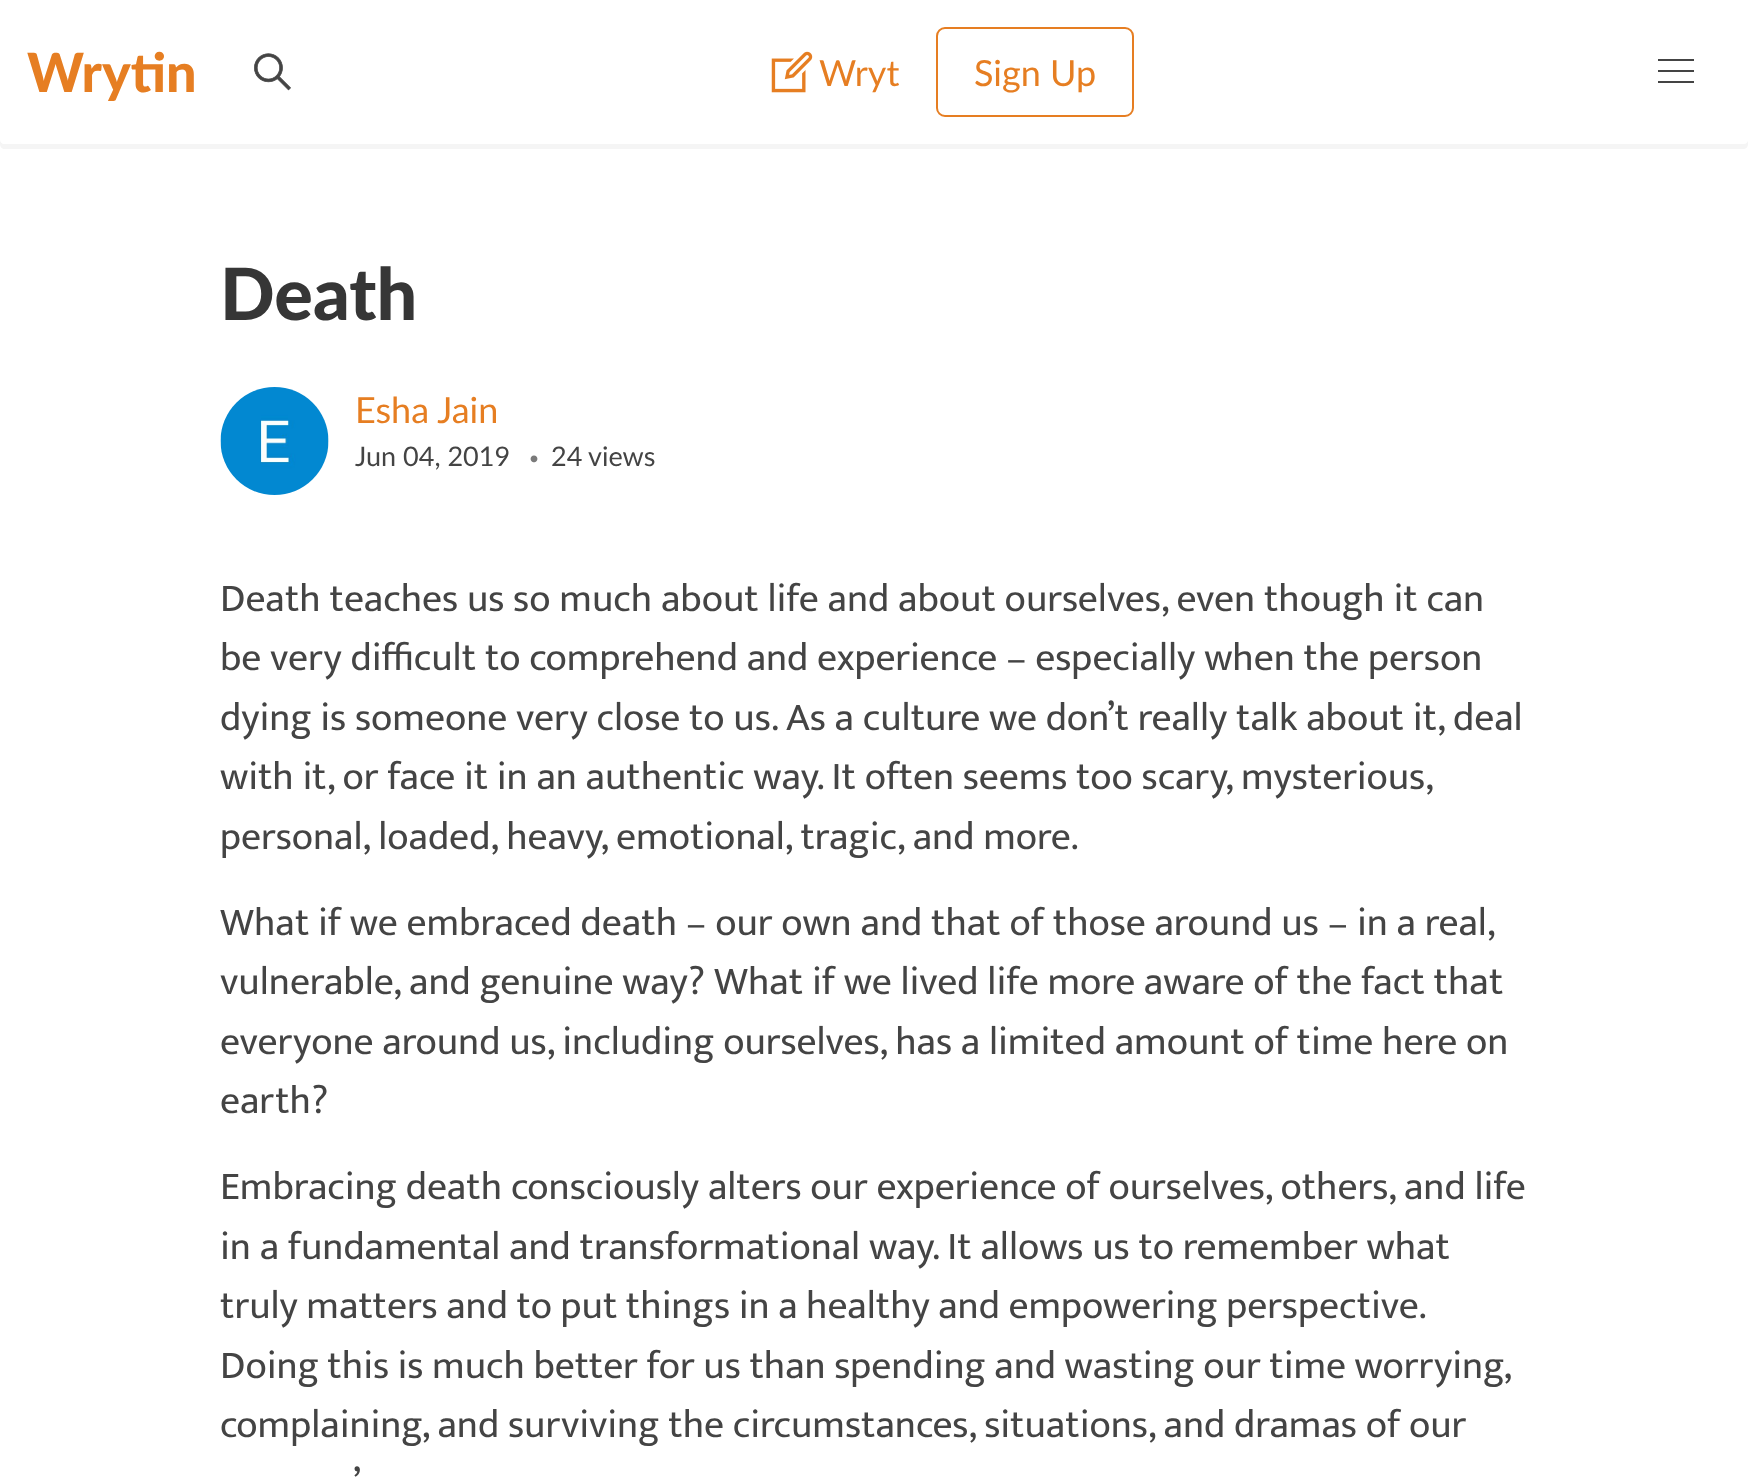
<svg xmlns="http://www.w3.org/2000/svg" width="1748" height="1480">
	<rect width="100%" height="100%" fill="#FFFFFF" />
	<path d="M0 140V144C0 147 2 149 5 149H1743C1746 149 1748 147 1748 144V141C1747 143 1746 144 1744 144H4C2 144 0 142 0 140Z" fill="#F5F5F5" />
	<text x="27" y="92" font-family="Lato" font-size="54" font-weight="900" fill="#E67E22">Wrytin</text>
	<image x="254" y="53" width="37" height="38" href="assets/img1.png" />
	<image x="771" y="51" width="42" height="42" href="assets/img2.png" />
	<text x="819" y="86" font-family="Lato" font-size="36" fill="#E67E22">Wryt</text>
	<rect x="937" y="28" width="196" height="88" rx="8" fill="none" stroke="#E67E22" stroke-width="2" />
	<text x="974" y="86" font-family="Lato" font-size="36" fill="#E67E22">Sign Up</text>
	<rect x="1658" y="59" width="36" height="2" fill="#444444" />
	<rect x="1658" y="70" width="36" height="2" fill="#444444" />
	<rect x="1658" y="81" width="36" height="2" fill="#444444" />
	<text x="220" y="320" font-family="Lato" font-size="72" font-weight="900" fill="#363636">Death</text>
	<circle cx="275" cy="441" r="54" fill="#F8F8F8" />
	<image x="220" y="387" width="109" height="108" href="assets/img3.png" />
	<text x="355" y="423" font-family="Lato" font-size="36" fill="#E67E22">Esha Jain</text>
	<text x="355" y="466" font-family="Lato" font-size="27" fill="#444444">Jun 04, 2019</text>
	<text x="529" y="466" font-family="Mukta" font-size="27" fill="#7A7A7A">•</text>
	<g font-family="Lato" font-size="27" fill="#444444">
		<text x="551" y="466">24</text>
		<text x="588" y="466">views</text>
	</g>
	<g font-family="Mukta" font-size="39.6" fill="#444444">
		<text x="220" y="611">Death teaches us so much about life and about ourselves, even though it can</text>
		<text x="220" y="670">be very difficult to comprehend and experience – especially when the person</text>
		<text x="220" y="730">dying is someone very close to us. As a culture we don’t really talk about it, deal</text>
		<text x="220" y="789" word-spacing="-0.1">with it, or face it in an authentic way. It often seems too scary, mysterious,</text>
		<text x="220" y="849">personal, loaded, heavy, emotional, tragic, and more.</text>
		<text x="220" y="935">What if we embraced death – our own and that of those around us – in a real,</text>
		<text x="220" y="994">vulnerable, and genuine way? What if we lived life more aware of the fact that</text>
		<text x="220" y="1054">everyone around us, including ourselves, has a limited amount of time here on</text>
		<text x="220" y="1113">earth?</text>
		<text x="220" y="1199">Embracing death consciously alters our experience of ourselves, others, and life</text>
		<text x="220" y="1259">in a fundamental and transformational way. It allows us to remember what</text>
		<text x="220" y="1318" word-spacing="-0.25">truly matters and to put things in a healthy and empowering perspective.</text>
		<text x="220" y="1378" word-spacing="-0.2">Doing this is much better for us than spending and wasting our time worrying,</text>
		<text x="220" y="1437">complaining, and surviving the circumstances, situations, and dramas of our</text>
		<text x="353" y="1496">’</text>
	</g>
</svg>
